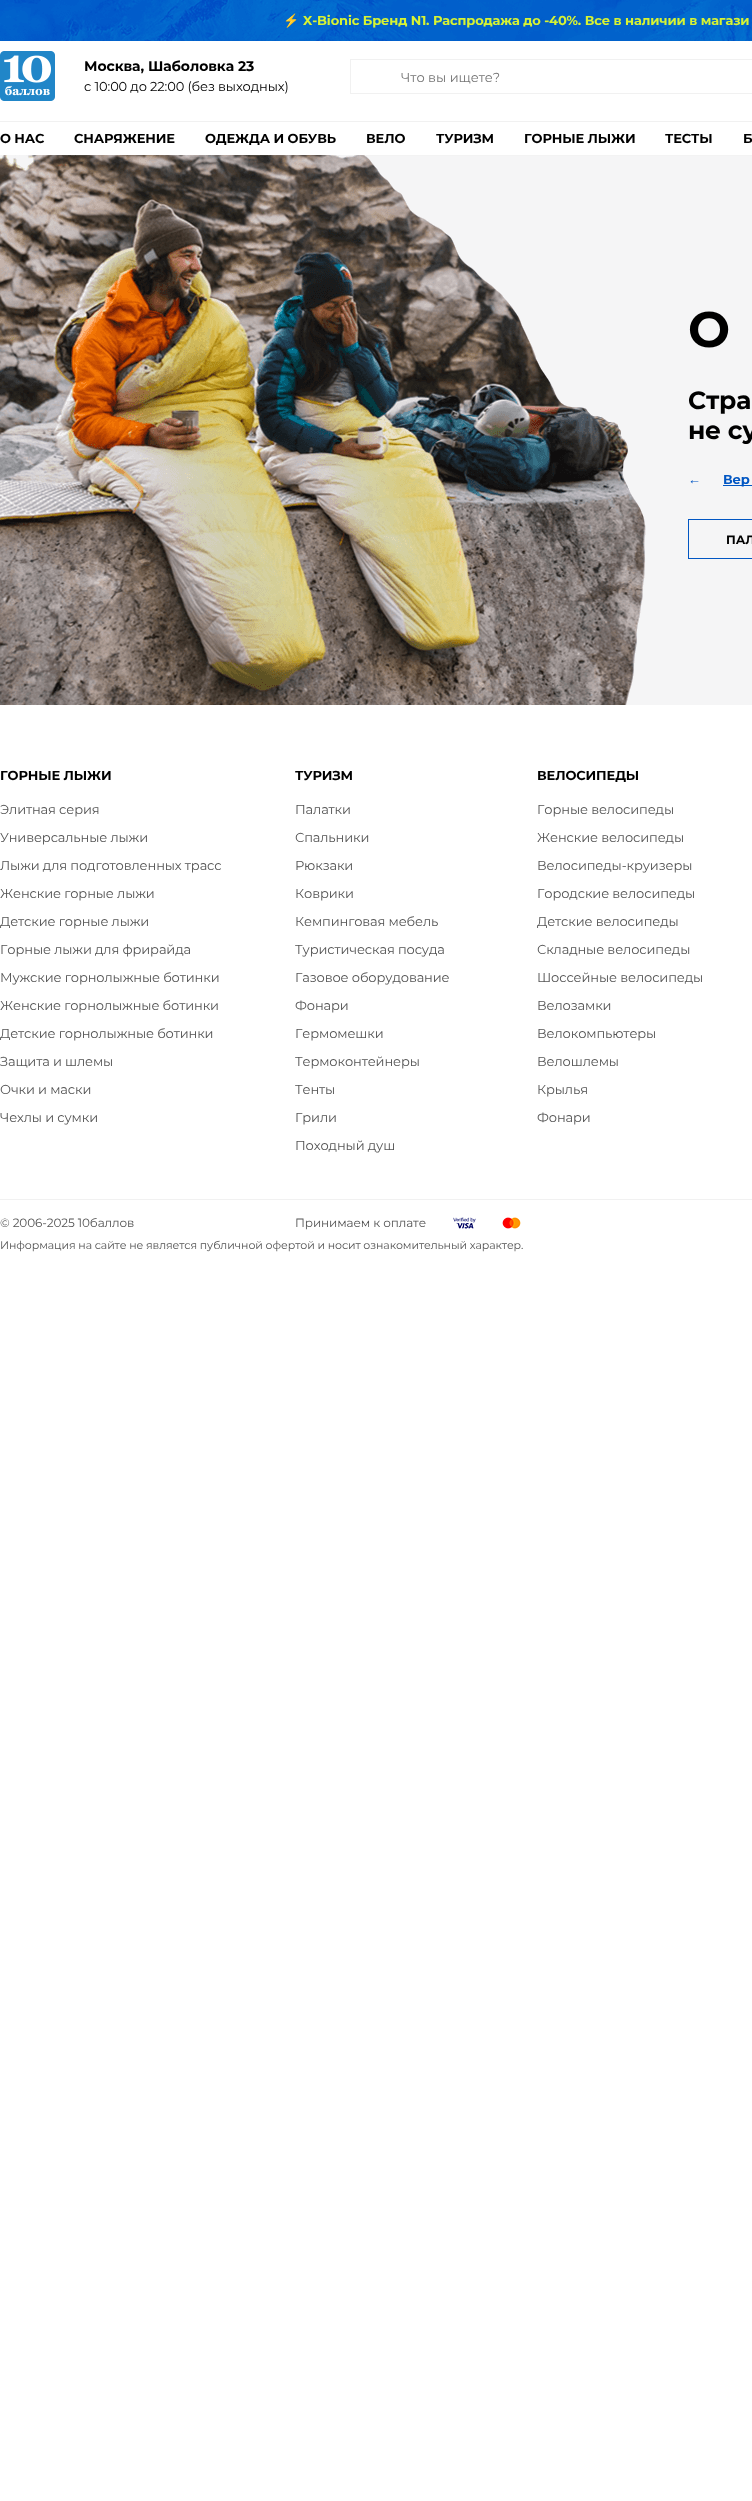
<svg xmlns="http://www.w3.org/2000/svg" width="752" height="2501">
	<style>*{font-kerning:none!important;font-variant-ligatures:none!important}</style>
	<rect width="100%" height="100%" fill="#FFFFFF" />
	<image x="0" y="0" width="752" height="41" href="assets/img1.png" />
	<text x="283" y="25" font-family="Noto Color Emoji" font-size="13" font-weight="700" letter-spacing="-0.13" fill="#D7F333">⚡</text>
	<text x="303" y="25" font-family="Montserrat" font-size="13" font-weight="700" letter-spacing="-0.13" fill="#D7F333">X-Bionic Бренд N1. Распродажа до -40%. Все в наличии в магази</text>
	<image x="0" y="51" width="55" height="50" href="assets/img2.png" />
	<text x="84" y="71" font-family="Montserrat" font-size="14" font-weight="700" letter-spacing="-0.1" fill="#000000">Москва, Шаболовка 23</text>
	<text x="84" y="91" font-family="Montserrat" font-size="13" letter-spacing="-0.13" fill="#000000">c 10:00 до 22:00 (без выходных)</text>
	<rect x="350.5" y="59.5" width="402" height="34" fill="none" stroke="#F1F1F1" />
	<text x="401" y="82" font-family="Montserrat" font-size="13" fill="#757575">Что вы ищете?</text>
	<rect x="0" y="121" width="752" height="1" fill="#F1F1F1" />
	<g font-family="Montserrat" font-size="13" font-weight="700" letter-spacing="-0.13" fill="#000000">
		<text x="0" y="143">О НАС</text>
		<text x="74" y="143">СНАРЯЖЕНИЕ</text>
		<text x="205" y="143">ОДЕЖДА И ОБУВЬ</text>
		<text x="366" y="143">ВЕЛО</text>
		<text x="436" y="143">ТУРИЗМ</text>
		<text x="524" y="143">ГОРНЫЕ ЛЫЖИ</text>
		<text x="665" y="143">ТЕСТЫ</text>
		<text x="743" y="143">Б</text>
	</g>
	<image x="0" y="155" width="752" height="550" href="assets/img3.png" />
	<text x="688" y="347" font-family="Montserrat" font-size="50" font-weight="700" fill="#000000">О</text>
	<g font-family="Montserrat" font-size="25" font-weight="700" letter-spacing="-0.25" fill="#000000">
		<text x="688" y="409">Стра</text>
		<text x="688" y="439">не су</text>
	</g>
	<text x="688" y="484" font-family="Liberation Sans" font-size="13" font-weight="700" letter-spacing="-0.13" fill="#0156C3">←</text>
	<rect x="723" y="485" width="29" height="1" fill="#0156C3" />
	<text x="723" y="484" font-family="Montserrat" font-size="13" font-weight="700" letter-spacing="-0.13" fill="#0156C3">Вер</text>
	<rect x="688.5" y="519.5" width="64" height="39" fill="none" stroke="#0156C3" />
	<text x="726" y="544" font-family="Montserrat" font-size="12" font-weight="700" letter-spacing="-0.1" fill="#000000">ПАЛ</text>
	<text x="0" y="780" font-family="Montserrat" font-size="13" font-weight="700" letter-spacing="-0.13" fill="#000000">ГОРНЫЕ ЛЫЖИ</text>
	<g font-family="Montserrat" font-size="13" letter-spacing="-0.13" fill="#545454">
		<text x="0" y="814">Элитная серия</text>
		<text x="0" y="842">Универсальные лыжи</text>
		<text x="0" y="870">Лыжи для подготовленных трасс</text>
		<text x="0" y="898">Женские горные лыжи</text>
		<text x="0" y="926">Детские горные лыжи</text>
		<text x="0" y="954">Горные лыжи для фрирайда</text>
		<text x="0" y="982">Мужские горнолыжные ботинки</text>
		<text x="0" y="1010">Женские горнолыжные ботинки</text>
		<text x="0" y="1038">Детские горнолыжные ботинки</text>
		<text x="0" y="1066">Защита и шлемы</text>
		<text x="0" y="1094">Очки и маски</text>
		<text x="0" y="1122">Чехлы и сумки</text>
	</g>
	<text x="295" y="780" font-family="Montserrat" font-size="13" font-weight="700" letter-spacing="-0.13" fill="#000000">ТУРИЗМ</text>
	<g font-family="Montserrat" font-size="13" letter-spacing="-0.13" fill="#545454">
		<text x="295" y="814">Палатки</text>
		<text x="295" y="842">Спальники</text>
		<text x="295" y="870">Рюкзаки</text>
		<text x="295" y="898">Коврики</text>
		<text x="295" y="926">Кемпинговая мебель</text>
		<text x="295" y="954">Туристическая посуда</text>
		<text x="295" y="982">Газовое оборудование</text>
		<text x="295" y="1010">Фонари</text>
		<text x="295" y="1038">Гермомешки</text>
		<text x="295" y="1066">Термоконтейнеры</text>
		<text x="295" y="1094">Тенты</text>
		<text x="295" y="1122">Грили</text>
		<text x="295" y="1150">Походный душ</text>
	</g>
	<text x="537" y="780" font-family="Montserrat" font-size="13" font-weight="700" letter-spacing="-0.13" fill="#000000">ВЕЛОСИПЕДЫ</text>
	<g font-family="Montserrat" font-size="13" letter-spacing="-0.13" fill="#545454">
		<text x="537" y="814">Горные велосипеды</text>
		<text x="537" y="842">Женские велосипеды</text>
		<text x="537" y="870">Велосипеды-круизеры</text>
		<text x="537" y="898">Городские велосипеды</text>
		<text x="537" y="926">Детские велосипеды</text>
		<text x="537" y="954">Складные велосипеды</text>
		<text x="537" y="982">Шоссейные велосипеды</text>
		<text x="537" y="1010">Велозамки</text>
		<text x="537" y="1038">Велокомпьютеры</text>
		<text x="537" y="1066">Велошлемы</text>
		<text x="537" y="1094">Крылья</text>
		<text x="537" y="1122">Фонари</text>
	</g>
	<rect x="0" y="1199" width="752" height="1" fill="#F1F1F1" />
	<g font-family="Montserrat" font-size="12" letter-spacing="-0.1" fill="#545454">
		<text x="0" y="1227">© 2006-2025 10баллов</text>
		<text x="295" y="1227">Принимаем к оплате</text>
	</g>
	<image x="453" y="1217" width="23" height="12" href="assets/img4.png" />
	<image x="502" y="1217" width="19" height="12" href="assets/img5.png" />
	<text x="0" y="1249" font-family="Montserrat" font-size="11" letter-spacing="-0.1" fill="#545454">Информация на сайте не является публичной офертой и носит ознакомительный характер.</text>
</svg>
